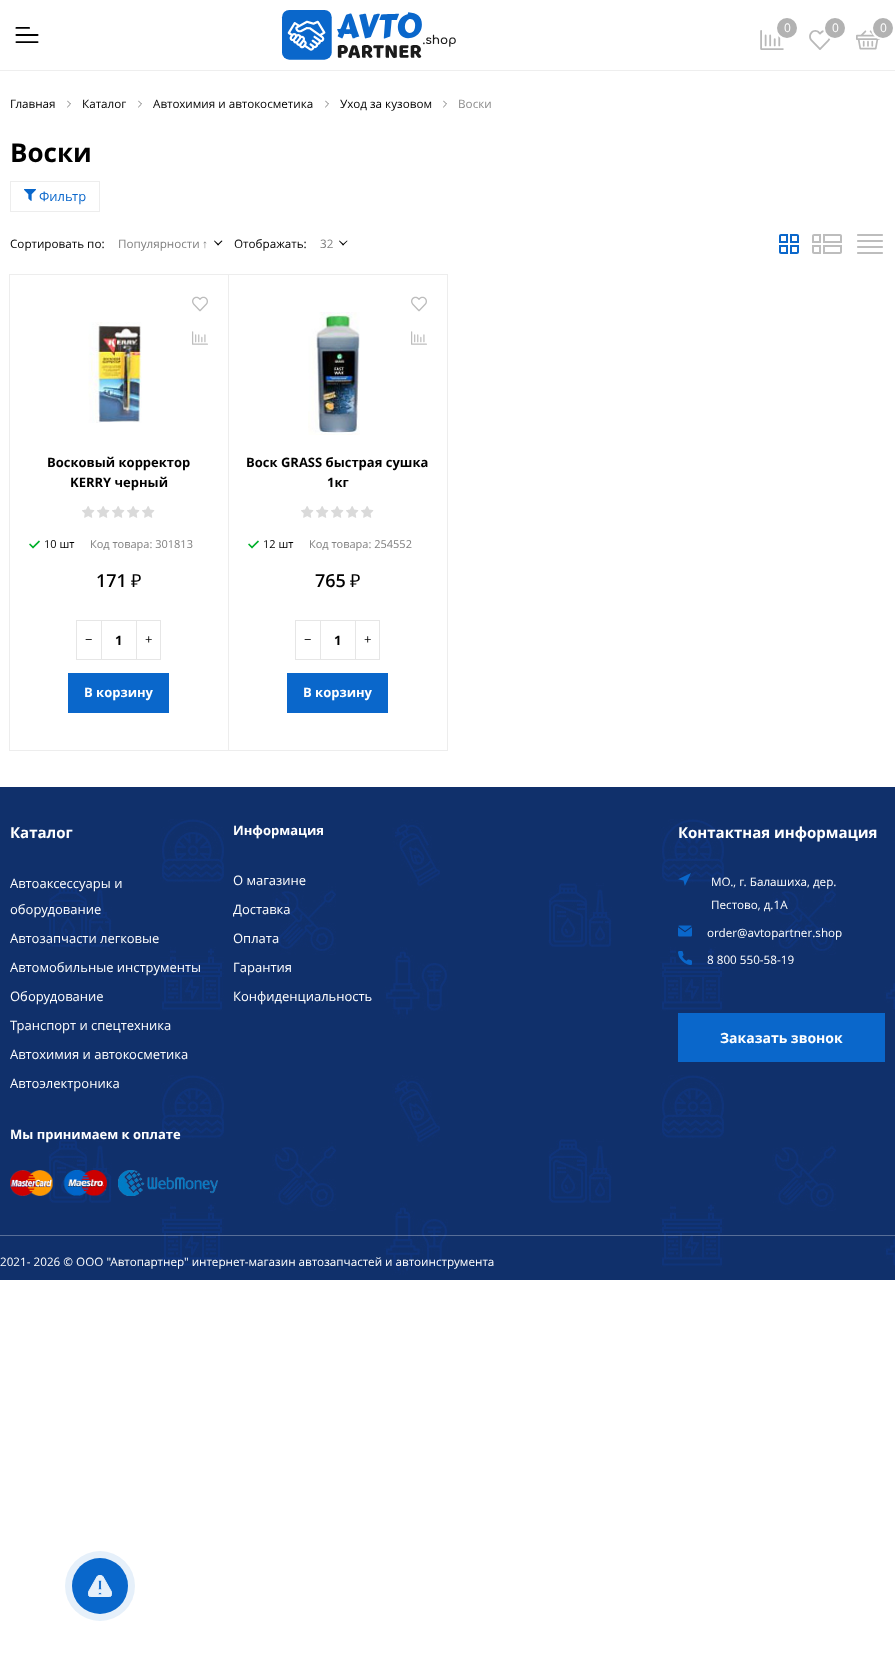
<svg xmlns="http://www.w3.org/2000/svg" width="895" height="1671">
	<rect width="100%" height="100%" fill="#FFFFFF" />
	<rect x="0" y="70" width="895" height="1" fill="#EEEEEE" />
	<image x="15" y="27" width="24" height="16" href="assets/img1.png" />
	<image x="281" y="10" width="175" height="50" href="assets/img2.png" />
	<image x="760" y="30" width="24" height="20" href="assets/img3.png" />
	<circle cx="787" cy="28" r="11" fill="#B2B2B2" stroke="#FFFFFF" stroke-width="2" />
	<text x="784" y="32" font-family="Open Sans" font-size="12" fill="#FFFFFF">0</text>
	<image x="809" y="30" width="22" height="20" href="assets/img4.png" />
	<circle cx="835" cy="28" r="11" fill="#B2B2B2" stroke="#FFFFFF" stroke-width="2" />
	<text x="832" y="32" font-family="Open Sans" font-size="12" fill="#FFFFFF">0</text>
	<image x="856" y="30" width="24" height="20" href="assets/img5.png" />
	<circle cx="883" cy="28" r="11" fill="#B2B2B2" stroke="#FFFFFF" stroke-width="2" />
	<text x="880" y="32" font-family="Open Sans" font-size="12" fill="#FFFFFF">0</text>
	<text x="10" y="108" font-family="Open Sans" font-size="11.7" fill="#000000">Главная</text>
	<image x="67" y="100" width="4" height="8" href="assets/img6.png" />
	<text x="82" y="108" font-family="Open Sans" font-size="11.7" fill="#000000">Каталог</text>
	<image x="138" y="100" width="4" height="8" href="assets/img6.png" />
	<text x="153" y="108" font-family="Open Sans" font-size="11.7" fill="#000000">Автохимия и автокосметика</text>
	<image x="325" y="100" width="4" height="8" href="assets/img6.png" />
	<text x="340" y="108" font-family="Open Sans" font-size="11.7" fill="#000000">Уход за кузовом</text>
	<image x="443" y="100" width="4" height="8" href="assets/img6.png" />
	<text x="458" y="108" font-family="Open Sans" font-size="11.7" fill="#8B8B8B">Воски</text>
	<text x="10" y="162" font-family="Open Sans" font-size="26" font-weight="700" fill="#000000">Воски</text>
	<rect x="10.5" y="181.5" width="89" height="30" fill="none" stroke="#EDEDED" />
	<image x="24" y="189" width="12" height="12" href="assets/img7.png" />
	<text x="39" y="201" font-family="Open Sans" font-size="13" fill="#0A67CB">Фильтр</text>
	<text x="10" y="248" font-family="Open Sans" font-size="11.7" fill="#000000">Сортировать по:</text>
	<text x="118" y="248" font-family="Open Sans" font-size="11.7" fill="#808080">Популярности</text>
	<text x="202" y="248" font-family="Liberation Sans" font-size="11.7" fill="#808080">↑</text>
	<path d="M221.5 240.5L222.5 241L218 245.5L217.5 244.5Z" fill="#000000" />
	<path d="M214.5 240.5L219 244.5L218 245.5L214 241Z" fill="#000000" />
	<text x="234" y="248" font-family="Open Sans" font-size="11.7" fill="#000000">Отображать:</text>
	<text x="320" y="248" font-family="Open Sans" font-size="11.7" fill="#808080">32</text>
	<path d="M347 240.5L347.5 241L343 245.5L342.5 244.5Z" fill="#000000" />
	<path d="M339.5 240.5L344 244.5L343 245.5L339 241Z" fill="#000000" />
	<image x="779" y="234" width="20" height="20" href="assets/img8.png" />
	<image x="812" y="234" width="30" height="20" href="assets/img9.png" />
	<image x="857" y="234" width="26" height="20" href="assets/img10.png" />
	<rect x="9.5" y="274.5" width="219" height="476" fill="none" stroke="#EDEDED" />
	<image x="88" y="322" width="54" height="101" href="assets/img11.png" />
	<image x="192" y="296" width="16" height="16" href="assets/img12.png" />
	<image x="192" y="331" width="16" height="14" href="assets/img13.png" />
	<g font-family="Open Sans" font-size="13" font-weight="700" fill="#000000">
		<text x="47" y="467">Восковый корректор</text>
		<text x="70" y="487">KERRY черный</text>
	</g>
	<rect x="82" y="506" width="73" height="12" fill="#DADADA" />
	<image x="81" y="505" width="76" height="14" href="assets/img14.png" />
	<image x="29" y="540" width="11" height="9" href="assets/img15.png" />
	<text x="44" y="548" font-family="Open Sans" font-size="11" fill="#000000">10 шт</text>
	<text x="90" y="548" font-family="Open Sans" font-size="11" fill="#808080">Код товара: 301813</text>
	<text x="96" y="587" font-family="Open Sans" font-size="18" font-weight="600" fill="#000000">171</text>
	<text x="131" y="587" font-family="Noto Sans" font-size="18" fill="#000000">₽</text>
	<rect x="76.5" y="620.5" width="25" height="39" fill="none" stroke="#E6E6E6" />
	<text x="85" y="644" font-family="Open Sans" font-size="13" fill="#000000">−</text>
	<rect x="102" y="620" width="34" height="1" fill="#E6E6E6" />
	<rect x="102" y="659" width="34" height="1" fill="#E6E6E6" />
	<text x="115" y="645" font-family="Open Sans" font-size="13" font-weight="700" fill="#000000">1</text>
	<rect x="136.5" y="620.5" width="24" height="39" fill="none" stroke="#E6E6E6" />
	<text x="145" y="644" font-family="Open Sans" font-size="13" fill="#000000">+</text>
	<rect x="68" y="673" width="101" height="40" fill="#0A67CB" />
	<text x="84" y="697" font-family="Open Sans" font-size="13" font-weight="700" fill="#FFFFFF">В корзину</text>
	<rect x="228.5" y="274.5" width="219" height="476" fill="none" stroke="#EDEDED" />
	<image x="308" y="312" width="52" height="123" href="assets/img16.png" />
	<image x="411" y="296" width="16" height="16" href="assets/img12.png" />
	<image x="411" y="331" width="16" height="14" href="assets/img13.png" />
	<g font-family="Open Sans" font-size="13" font-weight="700" fill="#000000">
		<text x="246" y="467">Воск GRASS быстрая сушка</text>
		<text x="327" y="487">1кг</text>
	</g>
	<rect x="301" y="506" width="73" height="12" fill="#DADADA" />
	<image x="300" y="505" width="76" height="14" href="assets/img14.png" />
	<image x="248" y="540" width="11" height="9" href="assets/img17.png" />
	<text x="263" y="548" font-family="Open Sans" font-size="11" fill="#000000">12 шт</text>
	<text x="309" y="548" font-family="Open Sans" font-size="11" fill="#808080">Код товара: 254552</text>
	<text x="315" y="587" font-family="Open Sans" font-size="18" font-weight="600" fill="#000000">765</text>
	<text x="350" y="587" font-family="Noto Sans" font-size="18" fill="#000000">₽</text>
	<rect x="295.5" y="620.5" width="25" height="39" fill="none" stroke="#E6E6E6" />
	<text x="304" y="644" font-family="Open Sans" font-size="13" fill="#000000">−</text>
	<rect x="321" y="620" width="34" height="1" fill="#E6E6E6" />
	<rect x="321" y="659" width="34" height="1" fill="#E6E6E6" />
	<text x="334" y="645" font-family="Open Sans" font-size="13" font-weight="700" fill="#000000">1</text>
	<rect x="355.5" y="620.5" width="24" height="39" fill="none" stroke="#E6E6E6" />
	<text x="364" y="644" font-family="Open Sans" font-size="13" fill="#000000">+</text>
	<rect x="287" y="673" width="101" height="40" fill="#0A67CB" />
	<text x="303" y="697" font-family="Open Sans" font-size="13" font-weight="700" fill="#FFFFFF">В корзину</text>
	<image x="0" y="787" width="895" height="493" href="assets/img18.png" />
	<text x="10" y="838" font-family="Open Sans" font-size="15" font-weight="700" fill="#FFFFFF">Каталог</text>
	<g font-family="Open Sans" font-size="13" fill="#FFFFFF">
		<text x="10" y="888">Автоаксессуары и</text>
		<text x="10" y="914">оборудование</text>
		<text x="10" y="943">Автозапчасти легковые</text>
		<text x="10" y="972">Автомобильные инструменты</text>
		<text x="10" y="1001">Оборудование</text>
		<text x="10" y="1030">Транспорт и спецтехника</text>
		<text x="10" y="1059">Автохимия и автокосметика</text>
		<text x="10" y="1088">Автоэлектроника</text>
	</g>
	<text x="233" y="835" font-family="Open Sans" font-size="13" font-weight="700" fill="#FFFFFF">Информация</text>
	<g font-family="Open Sans" font-size="13" fill="#FFFFFF">
		<text x="233" y="885">О магазине</text>
		<text x="233" y="914">Доставка</text>
		<text x="233" y="943">Оплата</text>
		<text x="233" y="972">Гарантия</text>
		<text x="233" y="1001">Конфиденциальность</text>
	</g>
	<text x="678" y="838" font-family="Open Sans" font-size="15" font-weight="700" fill="#FFFFFF">Контактная информация</text>
	<image x="678" y="873" width="13" height="13" href="assets/img19.png" />
	<g font-family="Open Sans" font-size="11.7" fill="#FFFFFF">
		<text x="711" y="886">МО., г. Балашиха, дер.</text>
		<text x="711" y="909">Пестово, д.1А</text>
	</g>
	<image x="678" y="925" width="14" height="12" href="assets/img20.png" />
	<text x="707" y="937" font-family="Open Sans" font-size="11.7" fill="#FFFFFF">order@avtopartner.shop</text>
	<image x="678" y="951" width="14" height="14" href="assets/img21.png" />
	<text x="707" y="964" font-family="Open Sans" font-size="11.7" fill="#FFFFFF">8 800 550-58-19</text>
	<rect x="678" y="1013" width="207" height="49" fill="#0A67CB" />
	<text x="720" y="1043" font-family="Open Sans" font-size="14" font-weight="700" fill="#FFFFFF">Заказать звонок</text>
	<text x="10" y="1139" font-family="Open Sans" font-size="13" font-weight="700" fill="#FFFFFF">Мы принимаем к оплате</text>
	<image x="10" y="1170" width="97" height="26" href="assets/img22.png" />
	<image x="118" y="1170" width="100" height="26" href="assets/img23.png" />
	<rect x="0" y="1235" width="895" height="1" fill="#FFFFFF" fill-opacity="0.3" />
	<text x="0" y="1266" font-family="Open Sans" font-size="11.7" fill="#FFFFFF">2021- 2026 © ООО "Автопартнер" интернет-магазин автозапчастей и автоинструмента</text>
	<circle cx="100" cy="1586" r="28" fill="#0A67CB" />
	<image x="88" y="1575" width="24" height="22" href="assets/img24.png" />
	<circle cx="100" cy="1586" r="35" fill="#0A67CB" fill-opacity="0.1" />
</svg>
